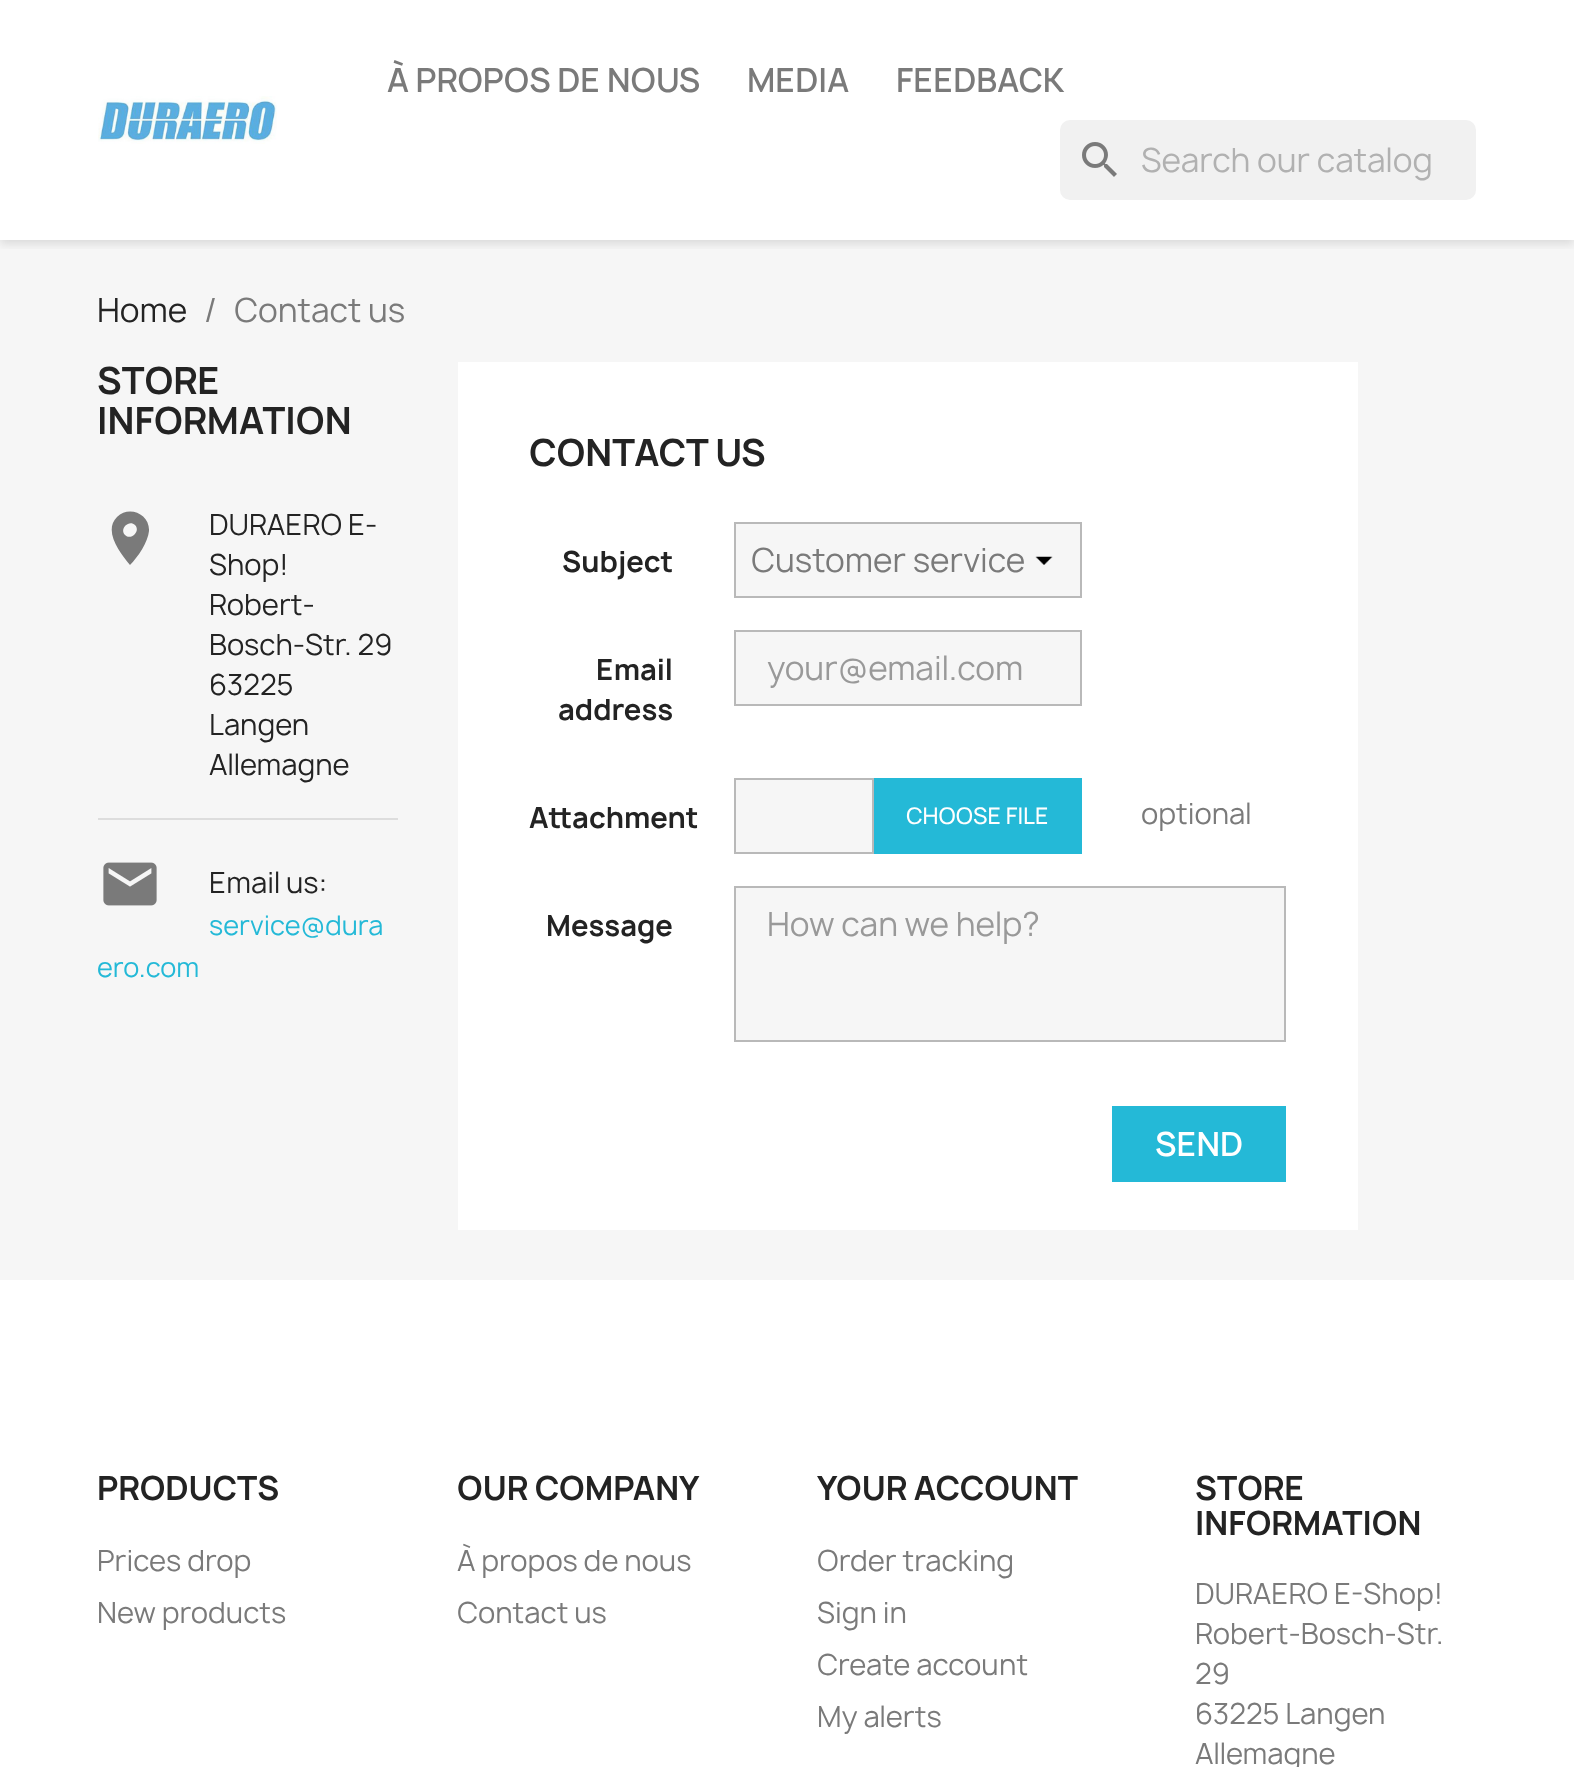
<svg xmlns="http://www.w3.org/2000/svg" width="1574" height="1767">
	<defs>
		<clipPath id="clip1"><rect x="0" y="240" width="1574" height="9" /></clipPath>
	</defs>
	<rect width="100%" height="100%" fill="#FFFFFF" />
	<rect x="0" y="240" width="1574" height="1040" fill="#F6F6F6" />
	<g clip-path="url(#clip1)">
		<rect x="0" y="-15" width="1574" height="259" fill="#000000" fill-opacity="0.11" filter="blur(5px)" />
	</g>
	<image x="98" y="96" width="179" height="48" href="assets/img1.png" />
	<g font-family="Manrope" font-size="32" font-weight="600" fill="#7A7A7A">
		<text x="387" y="92">À PROPOS DE NOUS</text>
		<text x="747" y="92">MEDIA</text>
		<text x="896" y="92">FEEDBACK</text>
	</g>
	<rect x="1060" y="120" width="416" height="80" rx="10" fill="#F1F1F1" />
	<image x="1082" y="142" width="35" height="35" href="assets/img2.png" />
	<text x="1141" y="172" font-family="Manrope" font-size="32" fill="#B1B1B1">Search our catalog</text>
	<text x="97" y="322" font-family="Manrope" font-size="32" fill="#232323">Home</text>
	<g font-family="Manrope" font-size="32" fill="#7A7A7A">
		<text x="204" y="322">/</text>
		<text x="234" y="322">Contact us</text>
	</g>
	<g font-family="Manrope" font-size="36" font-weight="700" fill="#232323">
		<text x="97" y="394">STORE</text>
		<text x="97" y="434">INFORMATION</text>
	</g>
	<path d="M125 535C131 541 141 531 135 525C129 519 119 529 125 535ZM117 517C129 505 150 514 149 531C148 542 138 557 130 565C120 553 103 531 117 517Z" fill="#7A7A7A" />
	<g font-family="Manrope" font-size="28" fill="#232323">
		<text x="209" y="535">DURAERO E-</text>
		<text x="209" y="575">Shop!</text>
		<text x="209" y="615">Robert-</text>
		<text x="209" y="655">Bosch-Str. 29</text>
		<text x="209" y="695">63225</text>
		<text x="209" y="735">Langen</text>
		<text x="209" y="775">Allemagne</text>
	</g>
	<rect x="98" y="818" width="300" height="2" fill="#DDDDDD" />
	<image x="103" y="862" width="54" height="44" href="assets/img3.png" />
	<text x="209" y="893" font-family="Manrope" font-size="28" fill="#232323">Email us:</text>
	<g font-family="Manrope" font-size="26" fill="#24B9D7">
		<text x="209" y="935">service@dura</text>
		<text x="97" y="977">ero.com</text>
	</g>
	<rect x="458" y="362" width="900" height="868" fill="#FFFFFF" />
	<text x="529" y="466" font-family="Manrope" font-size="36" font-weight="700" fill="#232323">CONTACT US</text>
	<text x="562" y="572" font-family="Manrope" font-size="28" font-weight="700" fill="#232323">Subject</text>
	<rect x="736" y="524" width="344" height="72" fill="#F6F6F6" />
	<image x="1035" y="556" width="18" height="9" href="assets/img4.png" />
	<rect x="735" y="523" width="346" height="74" fill="none" stroke="#B9B9B9" stroke-width="2" />
	<text x="751" y="572" font-family="Manrope" font-size="32" fill="#7A7A7A">Customer service</text>
	<g font-family="Manrope" font-size="28" font-weight="700" fill="#232323">
		<text x="596" y="680">Email</text>
		<text x="558" y="720">address</text>
	</g>
	<rect x="735" y="631" width="346" height="74" fill="#F6F6F6" stroke="#B9B9B9" stroke-width="2" />
	<text x="767" y="680" font-family="Manrope" font-size="32" fill="#999999">your@email.com</text>
	<text x="529" y="828" font-family="Manrope" font-size="28" font-weight="700" fill="#232323">Attachment</text>
	<rect x="735" y="779" width="138" height="74" fill="#F6F6F6" stroke="#B9B9B9" stroke-width="2" />
	<rect x="874" y="778" width="208" height="76" fill="#24B9D7" />
	<text x="906" y="824" font-family="Manrope" font-size="22" font-weight="500" fill="#FFFFFF">CHOOSE FILE</text>
	<text x="1141" y="824" font-family="Manrope" font-size="28" fill="#7A7A7A">optional</text>
	<text x="546" y="936" font-family="Manrope" font-size="28" font-weight="700" fill="#232323">Message</text>
	<rect x="735" y="887" width="550" height="154" fill="#F6F6F6" stroke="#B9B9B9" stroke-width="2" />
	<text x="767" y="936" font-family="Manrope" font-size="32" fill="#999999">How can we help?</text>
	<rect x="1112" y="1106" width="174" height="76" fill="#24B9D7" />
	<text x="1155" y="1156" font-family="Manrope" font-size="32" font-weight="600" fill="#FFFFFF">SEND</text>
	<text x="97" y="1500" font-family="Manrope" font-size="32" font-weight="700" fill="#232323">PRODUCTS</text>
	<g font-family="Manrope" font-size="28" fill="#7A7A7A">
		<text x="97" y="1571">Prices drop</text>
		<text x="97" y="1623">New products</text>
	</g>
	<text x="457" y="1500" font-family="Manrope" font-size="32" font-weight="700" fill="#232323">OUR COMPANY</text>
	<g font-family="Manrope" font-size="28" fill="#7A7A7A">
		<text x="457" y="1571">À propos de nous</text>
		<text x="457" y="1623">Contact us</text>
	</g>
	<text x="817" y="1500" font-family="Manrope" font-size="32" font-weight="700" fill="#232323">YOUR ACCOUNT</text>
	<g font-family="Manrope" font-size="28" fill="#7A7A7A">
		<text x="817" y="1571">Order tracking</text>
		<text x="817" y="1623">Sign in</text>
		<text x="817" y="1675">Create account</text>
		<text x="817" y="1727">My alerts</text>
	</g>
	<g font-family="Manrope" font-size="32" font-weight="700" fill="#232323">
		<text x="1195" y="1500">STORE</text>
		<text x="1195" y="1535">INFORMATION</text>
	</g>
	<g font-family="Manrope" font-size="28" fill="#7A7A7A">
		<text x="1195" y="1604">DURAERO E-Shop!</text>
		<text x="1195" y="1644">Robert-Bosch-Str.</text>
		<text x="1195" y="1684">29</text>
		<text x="1195" y="1724">63225 Langen</text>
		<text x="1195" y="1764">Allemagne</text>
	</g>
</svg>
